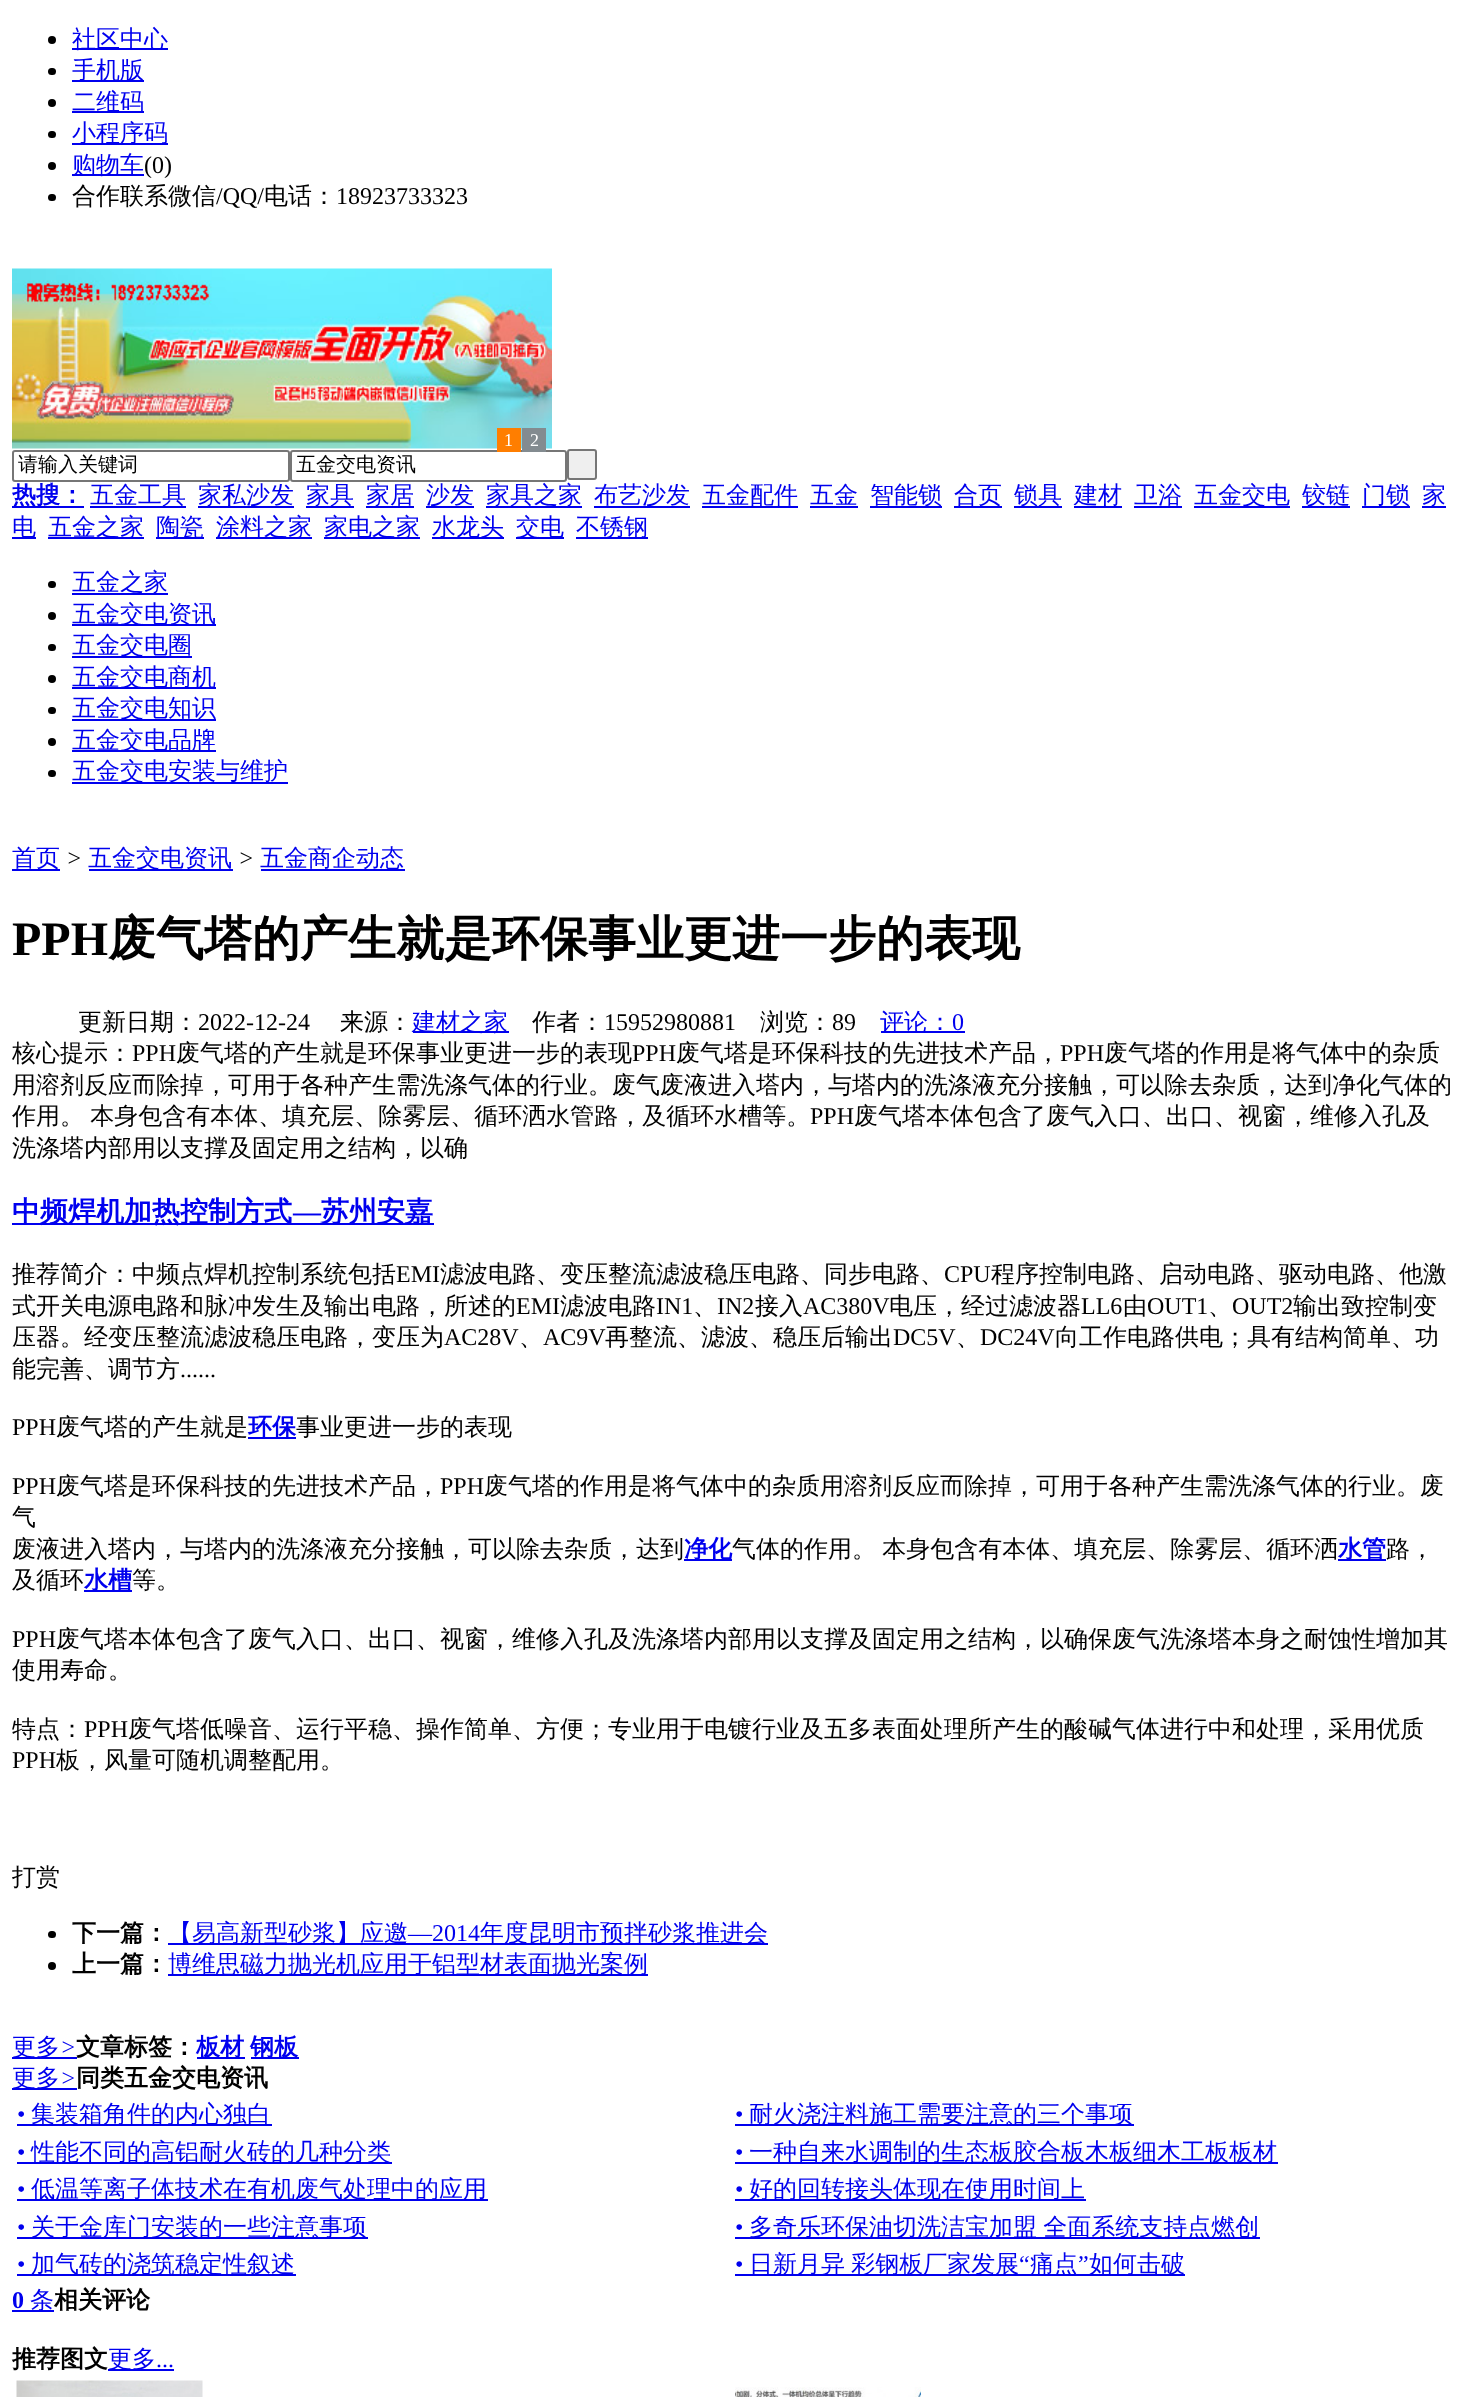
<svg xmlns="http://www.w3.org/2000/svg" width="1464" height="2397">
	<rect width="100%" height="100%" fill="#FFFFFF" />
	<circle cx="52" cy="40" r="4" fill="#000000" />
	<rect x="72" y="48" width="96" height="2" fill="#0000EE" />
	<text x="72" y="47" font-family="WenQuanYi Zen Hei" font-size="24" font-weight="500" fill="#0000EE">社区中心</text>
	<rect x="48" y="68" width="8" height="7" rx="3.5" fill="#000000" />
	<rect x="72" y="80" width="72" height="2" fill="#0000EE" />
	<text x="72" y="78" font-family="WenQuanYi Zen Hei" font-size="24" font-weight="500" fill="#0000EE">手机版</text>
	<circle cx="52" cy="103" r="4" fill="#000000" />
	<rect x="72" y="111" width="72" height="2" fill="#0000EE" />
	<text x="72" y="110" font-family="WenQuanYi Zen Hei" font-size="24" font-weight="500" fill="#0000EE">二维码</text>
	<rect x="48" y="131" width="8" height="7" rx="3.5" fill="#000000" />
	<rect x="72" y="143" width="96" height="2" fill="#0000EE" />
	<text x="72" y="141" font-family="WenQuanYi Zen Hei" font-size="24" font-weight="500" fill="#0000EE">小程序码</text>
	<circle cx="52" cy="166" r="4" fill="#000000" />
	<rect x="72" y="174" width="72" height="2" fill="#0000EE" />
	<text x="72" y="173" font-family="WenQuanYi Zen Hei" font-size="24" font-weight="500" fill="#0000EE">购物车</text>
	<text x="144" y="173" font-family="Liberation Serif" font-size="24" fill="#000000">(0)</text>
	<rect x="48" y="194" width="8" height="7" rx="3.5" fill="#000000" />
	<text x="72" y="204" font-family="WenQuanYi Zen Hei" font-size="24" font-weight="500" fill="#000000">合作联系微信</text>
	<text x="216" y="204" font-family="Liberation Serif" font-size="24" fill="#000000">/QQ/</text>
	<text x="264" y="204" font-family="WenQuanYi Zen Hei" font-size="24" font-weight="500" fill="#000000">电话：</text>
	<text x="336" y="204" font-family="Liberation Serif" font-size="24" fill="#000000">18923733323</text>
	<image x="12" y="268" width="540" height="181" href="assets/img1.png" />
	<rect x="291" y="451" width="275" height="30" rx="2" fill="none" stroke="#767676" stroke-width="2" />
	<rect x="497" y="428" width="24" height="24" fill="#FF7E00" />
	<text x="504" y="446" font-family="Liberation Serif" font-size="18" fill="#FFFFFF">1</text>
	<rect x="522" y="428" width="24" height="24" fill="#838B90" />
	<text x="530" y="446" font-family="Liberation Serif" font-size="18" fill="#FFFFFF">2</text>
	<rect x="13" y="451" width="276" height="30" rx="2" fill="none" stroke="#767676" stroke-width="2" />
	<g font-family="WenQuanYi Zen Hei" font-size="20" font-weight="500" fill="#000000">
		<text x="18" y="471">请输入关键词</text>
		<text x="296" y="471">五金交电资讯</text>
	</g>
	<rect x="568" y="450" width="28" height="29" rx="2" fill="#EFEFEF" stroke="#767676" stroke-width="2" />
	<rect x="12" y="506" width="72" height="2" fill="#0000EE" />
	<text x="12" y="503" font-family="WenQuanYi Zen Hei" font-size="24" font-weight="700" fill="#0000EE">热搜：</text>
	<rect x="90" y="506" width="96" height="2" fill="#0000EE" />
	<text x="90" y="503" font-family="WenQuanYi Zen Hei" font-size="24" font-weight="500" fill="#0000EE">五金工具</text>
	<rect x="198" y="506" width="96" height="2" fill="#0000EE" />
	<text x="198" y="503" font-family="WenQuanYi Zen Hei" font-size="24" font-weight="500" fill="#0000EE">家私沙发</text>
	<rect x="306" y="506" width="48" height="2" fill="#0000EE" />
	<text x="306" y="503" font-family="WenQuanYi Zen Hei" font-size="24" font-weight="500" fill="#0000EE">家具</text>
	<rect x="366" y="506" width="48" height="2" fill="#0000EE" />
	<text x="366" y="503" font-family="WenQuanYi Zen Hei" font-size="24" font-weight="500" fill="#0000EE">家居</text>
	<rect x="426" y="506" width="48" height="2" fill="#0000EE" />
	<text x="426" y="503" font-family="WenQuanYi Zen Hei" font-size="24" font-weight="500" fill="#0000EE">沙发</text>
	<rect x="486" y="506" width="96" height="2" fill="#0000EE" />
	<text x="486" y="503" font-family="WenQuanYi Zen Hei" font-size="24" font-weight="500" fill="#0000EE">家具之家</text>
	<rect x="594" y="506" width="96" height="2" fill="#0000EE" />
	<text x="594" y="503" font-family="WenQuanYi Zen Hei" font-size="24" font-weight="500" fill="#0000EE">布艺沙发</text>
	<rect x="702" y="506" width="96" height="2" fill="#0000EE" />
	<g font-family="WenQuanYi Zen Hei" font-size="24" font-weight="500" fill="#0000EE">
		<text x="702" y="503">五金配件</text>
		<text x="810" y="503">五金</text>
	</g>
	<rect x="810" y="506" width="48" height="2" fill="#0000EE" />
	<rect x="870" y="506" width="72" height="2" fill="#0000EE" />
	<text x="870" y="503" font-family="WenQuanYi Zen Hei" font-size="24" font-weight="500" fill="#0000EE">智能锁</text>
	<rect x="954" y="506" width="48" height="2" fill="#0000EE" />
	<text x="954" y="503" font-family="WenQuanYi Zen Hei" font-size="24" font-weight="500" fill="#0000EE">合页</text>
	<rect x="1014" y="506" width="48" height="2" fill="#0000EE" />
	<text x="1014" y="503" font-family="WenQuanYi Zen Hei" font-size="24" font-weight="500" fill="#0000EE">锁具</text>
	<rect x="1074" y="506" width="48" height="2" fill="#0000EE" />
	<g font-family="WenQuanYi Zen Hei" font-size="24" font-weight="500" fill="#0000EE">
		<text x="1074" y="503">建材</text>
		<text x="1134" y="503">卫浴</text>
	</g>
	<rect x="1134" y="506" width="48" height="2" fill="#0000EE" />
	<rect x="1194" y="506" width="96" height="2" fill="#0000EE" />
	<text x="1194" y="503" font-family="WenQuanYi Zen Hei" font-size="24" font-weight="500" fill="#0000EE">五金交电</text>
	<rect x="1302" y="506" width="48" height="2" fill="#0000EE" />
	<text x="1302" y="503" font-family="WenQuanYi Zen Hei" font-size="24" font-weight="500" fill="#0000EE">铰链</text>
	<rect x="1362" y="506" width="48" height="2" fill="#0000EE" />
	<text x="1362" y="503" font-family="WenQuanYi Zen Hei" font-size="24" font-weight="500" fill="#0000EE">门锁</text>
	<rect x="1422" y="506" width="24" height="2" fill="#0000EE" />
	<text x="1422" y="503" font-family="WenQuanYi Zen Hei" font-size="24" font-weight="500" fill="#0000EE">家</text>
	<rect x="12" y="537" width="24" height="2" fill="#0000EE" />
	<text x="12" y="535" font-family="WenQuanYi Zen Hei" font-size="24" font-weight="500" fill="#0000EE">电</text>
	<rect x="48" y="537" width="96" height="2" fill="#0000EE" />
	<text x="48" y="535" font-family="WenQuanYi Zen Hei" font-size="24" font-weight="500" fill="#0000EE">五金之家</text>
	<rect x="156" y="537" width="48" height="2" fill="#0000EE" />
	<text x="156" y="535" font-family="WenQuanYi Zen Hei" font-size="24" font-weight="500" fill="#0000EE">陶瓷</text>
	<rect x="216" y="537" width="96" height="2" fill="#0000EE" />
	<text x="216" y="535" font-family="WenQuanYi Zen Hei" font-size="24" font-weight="500" fill="#0000EE">涂料之家</text>
	<rect x="324" y="537" width="96" height="2" fill="#0000EE" />
	<text x="324" y="535" font-family="WenQuanYi Zen Hei" font-size="24" font-weight="500" fill="#0000EE">家电之家</text>
	<rect x="432" y="537" width="72" height="2" fill="#0000EE" />
	<text x="432" y="535" font-family="WenQuanYi Zen Hei" font-size="24" font-weight="500" fill="#0000EE">水龙头</text>
	<rect x="516" y="537" width="48" height="2" fill="#0000EE" />
	<text x="516" y="535" font-family="WenQuanYi Zen Hei" font-size="24" font-weight="500" fill="#0000EE">交电</text>
	<rect x="576" y="537" width="72" height="2" fill="#0000EE" />
	<text x="576" y="535" font-family="WenQuanYi Zen Hei" font-size="24" font-weight="500" fill="#0000EE">不锈钢</text>
	<rect x="48" y="581" width="8" height="7" rx="3.5" fill="#000000" />
	<rect x="72" y="593" width="96" height="2" fill="#0000EE" />
	<text x="72" y="590" font-family="WenQuanYi Zen Hei" font-size="24" font-weight="500" fill="#0000EE">五金之家</text>
	<circle cx="52" cy="616" r="4" fill="#000000" />
	<rect x="72" y="624" width="144" height="2" fill="#0000EE" />
	<text x="72" y="622" font-family="WenQuanYi Zen Hei" font-size="24" font-weight="500" fill="#0000EE">五金交电资讯</text>
	<rect x="48" y="644" width="8" height="7" rx="3.5" fill="#000000" />
	<rect x="72" y="656" width="120" height="2" fill="#0000EE" />
	<text x="72" y="653" font-family="WenQuanYi Zen Hei" font-size="24" font-weight="500" fill="#0000EE">五金交电圈</text>
	<circle cx="52" cy="679" r="4" fill="#000000" />
	<rect x="72" y="687" width="144" height="2" fill="#0000EE" />
	<text x="72" y="685" font-family="WenQuanYi Zen Hei" font-size="24" font-weight="500" fill="#0000EE">五金交电商机</text>
	<rect x="48" y="707" width="8" height="7" rx="3.5" fill="#000000" />
	<rect x="72" y="719" width="144" height="2" fill="#0000EE" />
	<text x="72" y="716" font-family="WenQuanYi Zen Hei" font-size="24" font-weight="500" fill="#0000EE">五金交电知识</text>
	<circle cx="52" cy="742" r="4" fill="#000000" />
	<rect x="72" y="750" width="144" height="2" fill="#0000EE" />
	<text x="72" y="748" font-family="WenQuanYi Zen Hei" font-size="24" font-weight="500" fill="#0000EE">五金交电品牌</text>
	<rect x="48" y="770" width="8" height="7" rx="3.5" fill="#000000" />
	<rect x="72" y="782" width="216" height="2" fill="#0000EE" />
	<text x="72" y="779" font-family="WenQuanYi Zen Hei" font-size="24" font-weight="500" fill="#0000EE">五金交电安装与维护</text>
	<rect x="12" y="869" width="48" height="2" fill="#0000EE" />
	<text x="12" y="866" font-family="WenQuanYi Zen Hei" font-size="24" font-weight="500" fill="#0000EE">首页</text>
	<text x="66" y="866" font-family="Liberation Serif" font-size="24" font-style="italic" fill="#000000">&gt;</text>
	<rect x="89" y="869" width="144" height="2" fill="#0000EE" />
	<text x="88" y="866" font-family="WenQuanYi Zen Hei" font-size="24" font-weight="500" fill="#0000EE">五金交电资讯</text>
	<text x="238" y="866" font-family="Liberation Serif" font-size="24" font-style="italic" fill="#000000">&gt;</text>
	<rect x="261" y="869" width="144" height="2" fill="#0000EE" />
	<text x="260" y="866" font-family="WenQuanYi Zen Hei" font-size="24" font-weight="500" fill="#0000EE">五金商企动态</text>
	<text x="12" y="955" font-family="Liberation Serif" font-size="48" font-weight="700" fill="#000000">PPH</text>
	<text x="108" y="955" font-family="WenQuanYi Zen Hei" font-size="48" font-weight="700" fill="#000000">废气塔的产生就是环保事业更进一步的表现</text>
	<text x="78" y="1030" font-family="WenQuanYi Zen Hei" font-size="24" font-weight="500" fill="#000000">更新日期：</text>
	<text x="198" y="1030" font-family="Liberation Serif" font-size="24" fill="#000000">2022-12-24</text>
	<text x="340" y="1030" font-family="WenQuanYi Zen Hei" font-size="24" font-weight="500" fill="#000000">来源：</text>
	<rect x="413" y="1031" width="96" height="2" fill="#0000EE" />
	<text x="412" y="1030" font-family="WenQuanYi Zen Hei" font-size="24" font-weight="500" fill="#0000EE">建材之家</text>
	<text x="532" y="1030" font-family="WenQuanYi Zen Hei" font-size="24" font-weight="500" fill="#000000">作者：</text>
	<text x="604" y="1030" font-family="Liberation Serif" font-size="24" fill="#000000">15952980881</text>
	<text x="760" y="1030" font-family="WenQuanYi Zen Hei" font-size="24" font-weight="500" fill="#000000">浏览：</text>
	<text x="832" y="1030" font-family="Liberation Serif" font-size="24" fill="#000000">89</text>
	<rect x="881" y="1031" width="84" height="2" fill="#0000EE" />
	<text x="880" y="1030" font-family="WenQuanYi Zen Hei" font-size="24" font-weight="500" fill="#0000EE">评论：</text>
	<text x="952" y="1030" font-family="Liberation Serif" font-size="24" fill="#0000EE">0</text>
	<text x="12" y="1061" font-family="WenQuanYi Zen Hei" font-size="24" font-weight="500" fill="#000000">核心提示：</text>
	<text x="132" y="1061" font-family="Liberation Serif" font-size="24" fill="#000000">PPH</text>
	<text x="176" y="1061" font-family="WenQuanYi Zen Hei" font-size="24" font-weight="500" fill="#000000">废气塔的产生就是环保事业更进一步的表现</text>
	<text x="632" y="1061" font-family="Liberation Serif" font-size="24" fill="#000000">PPH</text>
	<text x="676" y="1061" font-family="WenQuanYi Zen Hei" font-size="24" font-weight="500" fill="#000000">废气塔是环保科技的先进技术产品，</text>
	<text x="1060" y="1061" font-family="Liberation Serif" font-size="24" fill="#000000">PPH</text>
	<g font-family="WenQuanYi Zen Hei" font-size="24" font-weight="500" fill="#000000">
		<text x="1104" y="1061">废气塔的作用是将气体中的杂质</text>
		<text x="12" y="1093">用溶剂反应而除掉，可用于各种产生需洗涤气体的行业。废气废液进入塔内，与塔内的洗涤液充分接触，可以除去杂质，达到净化气体的</text>
		<text x="12" y="1124" word-spacing="-1">作用。 本身包含有本体、填充层、除雾层、循环洒水管路，及循环水槽等。</text>
	</g>
	<text x="810" y="1124" font-family="Liberation Serif" font-size="24" fill="#000000">PPH</text>
	<g font-family="WenQuanYi Zen Hei" font-size="24" font-weight="500" fill="#000000">
		<text x="854" y="1124">废气塔本体包含了废气入口、出口、视窗，维修入孔及</text>
		<text x="12" y="1156">洗涤塔内部用以支撑及固定用之结构，以确</text>
	</g>
	<rect x="12" y="1223" width="422" height="2" fill="#0000EE" />
	<text x="12" y="1221" font-family="WenQuanYi Zen Hei" font-size="28" font-weight="700" fill="#0000EE">中频焊机加热控制方式</text>
	<text x="293" y="1221" font-family="Liberation Serif" font-size="28" font-weight="700" fill="#0000EE">—</text>
	<text x="321" y="1221" font-family="WenQuanYi Zen Hei" font-size="28" font-weight="700" fill="#0000EE">苏州安嘉</text>
	<text x="12" y="1282" font-family="WenQuanYi Zen Hei" font-size="24" font-weight="500" fill="#000000">推荐简介：中频点焊机控制系统包括</text>
	<text x="396" y="1282" font-family="Liberation Serif" font-size="24" fill="#000000">EMI</text>
	<text x="440" y="1282" font-family="WenQuanYi Zen Hei" font-size="24" font-weight="500" fill="#000000">滤波电路、变压整流滤波稳压电路、同步电路、</text>
	<text x="944" y="1282" font-family="Liberation Serif" font-size="24" fill="#000000">CPU</text>
	<g font-family="WenQuanYi Zen Hei" font-size="24" font-weight="500" fill="#000000">
		<text x="991" y="1282">程序控制电路、启动电路、驱动电路、他激</text>
		<text x="12" y="1314">式开关电源电路和脉冲发生及输出电路，所述的</text>
	</g>
	<text x="516" y="1314" font-family="Liberation Serif" font-size="24" fill="#000000">EMI</text>
	<text x="560" y="1314" font-family="WenQuanYi Zen Hei" font-size="24" font-weight="500" fill="#000000">滤波电路</text>
	<text x="656" y="1314" font-family="Liberation Serif" font-size="24" fill="#000000">IN1</text>
	<text x="693" y="1314" font-family="WenQuanYi Zen Hei" font-size="24" font-weight="500" fill="#000000">、</text>
	<text x="717" y="1314" font-family="Liberation Serif" font-size="24" fill="#000000">IN2</text>
	<text x="755" y="1314" font-family="WenQuanYi Zen Hei" font-size="24" font-weight="500" fill="#000000">接入</text>
	<text x="803" y="1314" font-family="Liberation Serif" font-size="24" fill="#000000">AC380V</text>
	<text x="889" y="1314" font-family="WenQuanYi Zen Hei" font-size="24" font-weight="500" fill="#000000">电压，经过滤波器</text>
	<text x="1081" y="1314" font-family="Liberation Serif" font-size="24" fill="#000000">LL6</text>
	<text x="1123" y="1314" font-family="WenQuanYi Zen Hei" font-size="24" font-weight="500" fill="#000000">由</text>
	<text x="1147" y="1314" font-family="Liberation Serif" font-size="24" fill="#000000">OUT1</text>
	<text x="1208" y="1314" font-family="WenQuanYi Zen Hei" font-size="24" font-weight="500" fill="#000000">、</text>
	<text x="1232" y="1314" font-family="Liberation Serif" font-size="24" fill="#000000">OUT2</text>
	<g font-family="WenQuanYi Zen Hei" font-size="24" font-weight="500" fill="#000000">
		<text x="1293" y="1314">输出致控制变</text>
		<text x="12" y="1345">压器。经变压整流滤波稳压电路，变压为</text>
	</g>
	<text x="444" y="1345" font-family="Liberation Serif" font-size="24" fill="#000000">AC28V</text>
	<text x="519" y="1345" font-family="WenQuanYi Zen Hei" font-size="24" font-weight="500" fill="#000000">、</text>
	<text x="543" y="1345" font-family="Liberation Serif" font-size="24" fill="#000000">AC9V</text>
	<text x="605" y="1345" font-family="WenQuanYi Zen Hei" font-size="24" font-weight="500" fill="#000000">再整流、滤波、稳压后输出</text>
	<text x="893" y="1345" font-family="Liberation Serif" font-size="24" fill="#000000">DC5V</text>
	<text x="956" y="1345" font-family="WenQuanYi Zen Hei" font-size="24" font-weight="500" fill="#000000">、</text>
	<text x="980" y="1345" font-family="Liberation Serif" font-size="24" fill="#000000">DC24V</text>
	<g font-family="WenQuanYi Zen Hei" font-size="24" font-weight="500" fill="#000000">
		<text x="1055" y="1345">向工作电路供电；具有结构简单、功</text>
		<text x="12" y="1377">能完善、调节方</text>
	</g>
	<g font-family="Liberation Serif" font-size="24" fill="#000000">
		<text x="180" y="1377">......</text>
		<text x="12" y="1435">PPH</text>
	</g>
	<text x="56" y="1435" font-family="WenQuanYi Zen Hei" font-size="24" font-weight="500" fill="#000000">废气塔的产生就是</text>
	<rect x="248" y="1437" width="48" height="2" fill="#0000EE" />
	<text x="248" y="1435" font-family="WenQuanYi Zen Hei" font-size="24" font-weight="700" fill="#0000EE">环保</text>
	<text x="296" y="1435" font-family="WenQuanYi Zen Hei" font-size="24" font-weight="500" fill="#000000">事业更进一步的表现</text>
	<text x="12" y="1494" font-family="Liberation Serif" font-size="24" fill="#000000">PPH</text>
	<text x="56" y="1494" font-family="WenQuanYi Zen Hei" font-size="24" font-weight="500" fill="#000000">废气塔是环保科技的先进技术产品，</text>
	<text x="440" y="1494" font-family="Liberation Serif" font-size="24" fill="#000000">PPH</text>
	<g font-family="WenQuanYi Zen Hei" font-size="24" font-weight="500" fill="#000000">
		<text x="484" y="1494">废气塔的作用是将气体中的杂质用溶剂反应而除掉，可用于各种产生需洗涤气体的行业。废</text>
		<text x="12" y="1525">气</text>
		<text x="12" y="1557">废液进入塔内，与塔内的洗涤液充分接触，可以除去杂质，达到</text>
	</g>
	<rect x="684" y="1559" width="48" height="2" fill="#0000EE" />
	<text x="684" y="1557" font-family="WenQuanYi Zen Hei" font-size="24" font-weight="700" fill="#0000EE">净化</text>
	<text x="732" y="1557" word-spacing="-1" font-family="WenQuanYi Zen Hei" font-size="24" font-weight="500" fill="#000000">气体的作用。 本身包含有本体、填充层、除雾层、循环洒</text>
	<rect x="1338" y="1559" width="48" height="2" fill="#0000EE" />
	<text x="1338" y="1557" font-family="WenQuanYi Zen Hei" font-size="24" font-weight="700" fill="#0000EE">水管</text>
	<g font-family="WenQuanYi Zen Hei" font-size="24" font-weight="500" fill="#000000">
		<text x="1386" y="1557">路，</text>
		<text x="12" y="1588">及循环</text>
	</g>
	<rect x="84" y="1590" width="48" height="2" fill="#0000EE" />
	<text x="84" y="1588" font-family="WenQuanYi Zen Hei" font-size="24" font-weight="700" fill="#0000EE">水槽</text>
	<text x="132" y="1588" font-family="WenQuanYi Zen Hei" font-size="24" font-weight="500" fill="#000000">等。</text>
	<text x="12" y="1647" font-family="Liberation Serif" font-size="24" fill="#000000">PPH</text>
	<g font-family="WenQuanYi Zen Hei" font-size="24" font-weight="500" fill="#000000">
		<text x="56" y="1647">废气塔本体包含了废气入口、出口、视窗，维修入孔及洗涤塔内部用以支撑及固定用之结构，以确保废气洗涤塔本身之耐蚀性增加其</text>
		<text x="12" y="1678">使用寿命。</text>
		<text x="12" y="1737">特点：</text>
	</g>
	<text x="84" y="1737" font-family="Liberation Serif" font-size="24" fill="#000000">PPH</text>
	<text x="128" y="1737" font-family="WenQuanYi Zen Hei" font-size="24" font-weight="500" fill="#000000">废气塔低噪音、运行平稳、操作简单、方便；专业用于电镀行业及五多表面处理所产生的酸碱气体进行中和处理，采用优质</text>
	<text x="12" y="1768" font-family="Liberation Serif" font-size="24" fill="#000000">PPH</text>
	<g font-family="WenQuanYi Zen Hei" font-size="24" font-weight="500" fill="#000000">
		<text x="56" y="1768">板，风量可随机调整配用。</text>
		<text x="12" y="1885">打赏</text>
	</g>
	<rect x="48" y="1931" width="8" height="7" rx="3.5" fill="#000000" />
	<text x="72" y="1941" font-family="WenQuanYi Zen Hei" font-size="24" font-weight="700" fill="#000000">下一篇：</text>
	<rect x="168" y="1943" width="600" height="2" fill="#0000EE" />
	<text x="168" y="1941" font-family="WenQuanYi Zen Hei" font-size="24" font-weight="500" fill="#0000EE">【易高新型砂浆】应邀</text>
	<text x="408" y="1941" font-family="Liberation Serif" font-size="24" fill="#0000EE">—2014</text>
	<text x="480" y="1941" font-family="WenQuanYi Zen Hei" font-size="24" font-weight="500" fill="#0000EE">年度昆明市预拌砂浆推进会</text>
	<circle cx="52" cy="1966" r="4" fill="#000000" />
	<text x="72" y="1972" font-family="WenQuanYi Zen Hei" font-size="24" font-weight="700" fill="#000000">上一篇：</text>
	<rect x="168" y="1974" width="480" height="2" fill="#0000EE" />
	<text x="168" y="1972" font-family="WenQuanYi Zen Hei" font-size="24" font-weight="500" fill="#0000EE">博维思磁力抛光机应用于铝型材表面抛光案例</text>
	<rect x="12" y="2057" width="65" height="2" fill="#0000EE" />
	<text x="12" y="2055" font-family="WenQuanYi Zen Hei" font-size="24" font-weight="500" fill="#0000EE">更多</text>
	<text x="60" y="2055" font-family="Liberation Serif" font-size="24" font-style="italic" fill="#0000EE">&gt;</text>
	<text x="76" y="2055" font-family="WenQuanYi Zen Hei" font-size="24" font-weight="700" fill="#000000">文章标签：</text>
	<rect x="197" y="2057" width="48" height="2" fill="#0000EE" />
	<text x="196" y="2055" font-family="WenQuanYi Zen Hei" font-size="24" font-weight="700" fill="#0000EE">板材</text>
	<rect x="251" y="2057" width="48" height="2" fill="#0000EE" />
	<text x="250" y="2055" font-family="WenQuanYi Zen Hei" font-size="24" font-weight="700" fill="#0000EE">钢板</text>
	<rect x="12" y="2088" width="65" height="2" fill="#0000EE" />
	<text x="12" y="2086" font-family="WenQuanYi Zen Hei" font-size="24" font-weight="500" fill="#0000EE">更多</text>
	<text x="60" y="2086" font-family="Liberation Serif" font-size="24" font-style="italic" fill="#0000EE">&gt;</text>
	<text x="76" y="2086" font-family="WenQuanYi Zen Hei" font-size="24" font-weight="700" fill="#000000">同类五金交电资讯</text>
	<text x="17" y="2122" font-family="Liberation Serif" font-size="24" fill="#0000EE">•</text>
	<rect x="17" y="2124" width="255" height="2" fill="#0000EE" />
	<text x="31" y="2122" font-family="WenQuanYi Zen Hei" font-size="24" font-weight="500" fill="#0000EE">集装箱角件的内心独白</text>
	<text x="735" y="2122" font-family="Liberation Serif" font-size="24" fill="#0000EE">•</text>
	<rect x="735" y="2124" width="399" height="2" fill="#0000EE" />
	<text x="749" y="2122" font-family="WenQuanYi Zen Hei" font-size="24" font-weight="500" fill="#0000EE">耐火浇注料施工需要注意的三个事项</text>
	<text x="17" y="2160" font-family="Liberation Serif" font-size="24" fill="#0000EE">•</text>
	<rect x="17" y="2162" width="375" height="2" fill="#0000EE" />
	<text x="31" y="2160" font-family="WenQuanYi Zen Hei" font-size="24" font-weight="500" fill="#0000EE">性能不同的高铝耐火砖的几种分类</text>
	<text x="735" y="2160" font-family="Liberation Serif" font-size="24" fill="#0000EE">•</text>
	<rect x="735" y="2162" width="543" height="2" fill="#0000EE" />
	<text x="749" y="2160" font-family="WenQuanYi Zen Hei" font-size="24" font-weight="500" fill="#0000EE">一种自来水调制的生态板胶合板木板细木工板板材</text>
	<text x="17" y="2197" font-family="Liberation Serif" font-size="24" fill="#0000EE">•</text>
	<rect x="17" y="2199" width="471" height="2" fill="#0000EE" />
	<text x="31" y="2197" font-family="WenQuanYi Zen Hei" font-size="24" font-weight="500" fill="#0000EE">低温等离子体技术在有机废气处理中的应用</text>
	<text x="735" y="2197" font-family="Liberation Serif" font-size="24" fill="#0000EE">•</text>
	<rect x="735" y="2199" width="351" height="2" fill="#0000EE" />
	<text x="749" y="2197" font-family="WenQuanYi Zen Hei" font-size="24" font-weight="500" fill="#0000EE">好的回转接头体现在使用时间上</text>
	<text x="17" y="2235" font-family="Liberation Serif" font-size="24" fill="#0000EE">•</text>
	<rect x="17" y="2237" width="351" height="2" fill="#0000EE" />
	<text x="31" y="2235" font-family="WenQuanYi Zen Hei" font-size="24" font-weight="500" fill="#0000EE">关于金库门安装的一些注意事项</text>
	<text x="735" y="2235" font-family="Liberation Serif" font-size="24" fill="#0000EE">•</text>
	<rect x="735" y="2237" width="525" height="2" fill="#0000EE" />
	<text x="749" y="2235" word-spacing="-1" font-family="WenQuanYi Zen Hei" font-size="24" font-weight="500" fill="#0000EE">多奇乐环保油切洗洁宝加盟 全面系统支持点燃创</text>
	<text x="17" y="2272" font-family="Liberation Serif" font-size="24" fill="#0000EE">•</text>
	<rect x="17" y="2274" width="279" height="2" fill="#0000EE" />
	<text x="31" y="2272" font-family="WenQuanYi Zen Hei" font-size="24" font-weight="500" fill="#0000EE">加气砖的浇筑稳定性叙述</text>
	<rect x="735" y="2274" width="450" height="2" fill="#0000EE" />
	<text x="749" y="2272" word-spacing="-1" font-family="WenQuanYi Zen Hei" font-size="24" font-weight="500" fill="#0000EE">日新月异 彩钢板厂家发展</text>
	<text x="1019" y="2272" font-family="Liberation Serif" font-size="24" fill="#0000EE">“</text>
	<text x="1030" y="2272" font-family="WenQuanYi Zen Hei" font-size="24" font-weight="500" fill="#0000EE">痛点</text>
	<text x="1078" y="2272" font-family="Liberation Serif" font-size="24" fill="#0000EE">”</text>
	<text x="1089" y="2272" font-family="WenQuanYi Zen Hei" font-size="24" font-weight="500" fill="#0000EE">如何击破</text>
	<text x="735" y="2272" font-family="Liberation Serif" font-size="24" fill="#0000EE">•</text>
	<text x="12" y="2308" font-family="Liberation Serif" font-size="24" font-weight="700" fill="#0000EE">0</text>
	<rect x="12" y="2310" width="42" height="2" fill="#0000EE" />
	<text x="30" y="2308" font-family="WenQuanYi Zen Hei" font-size="24" font-weight="500" fill="#0000EE">条</text>
	<g font-family="WenQuanYi Zen Hei" font-size="24" font-weight="700" fill="#000000">
		<text x="54" y="2308">相关评论</text>
		<text x="12" y="2367">推荐图文</text>
	</g>
	<rect x="108" y="2369" width="66" height="2" fill="#0000EE" />
	<text x="108" y="2367" font-family="WenQuanYi Zen Hei" font-size="24" font-weight="500" fill="#0000EE">更多</text>
	<text x="156" y="2367" font-family="Liberation Serif" font-size="24" fill="#0000EE">...</text>
	<image x="16" y="2380" width="187" height="17" href="assets/img2.png" />
	<image x="735" y="2387" width="186" height="10" href="assets/img3.png" />
</svg>
